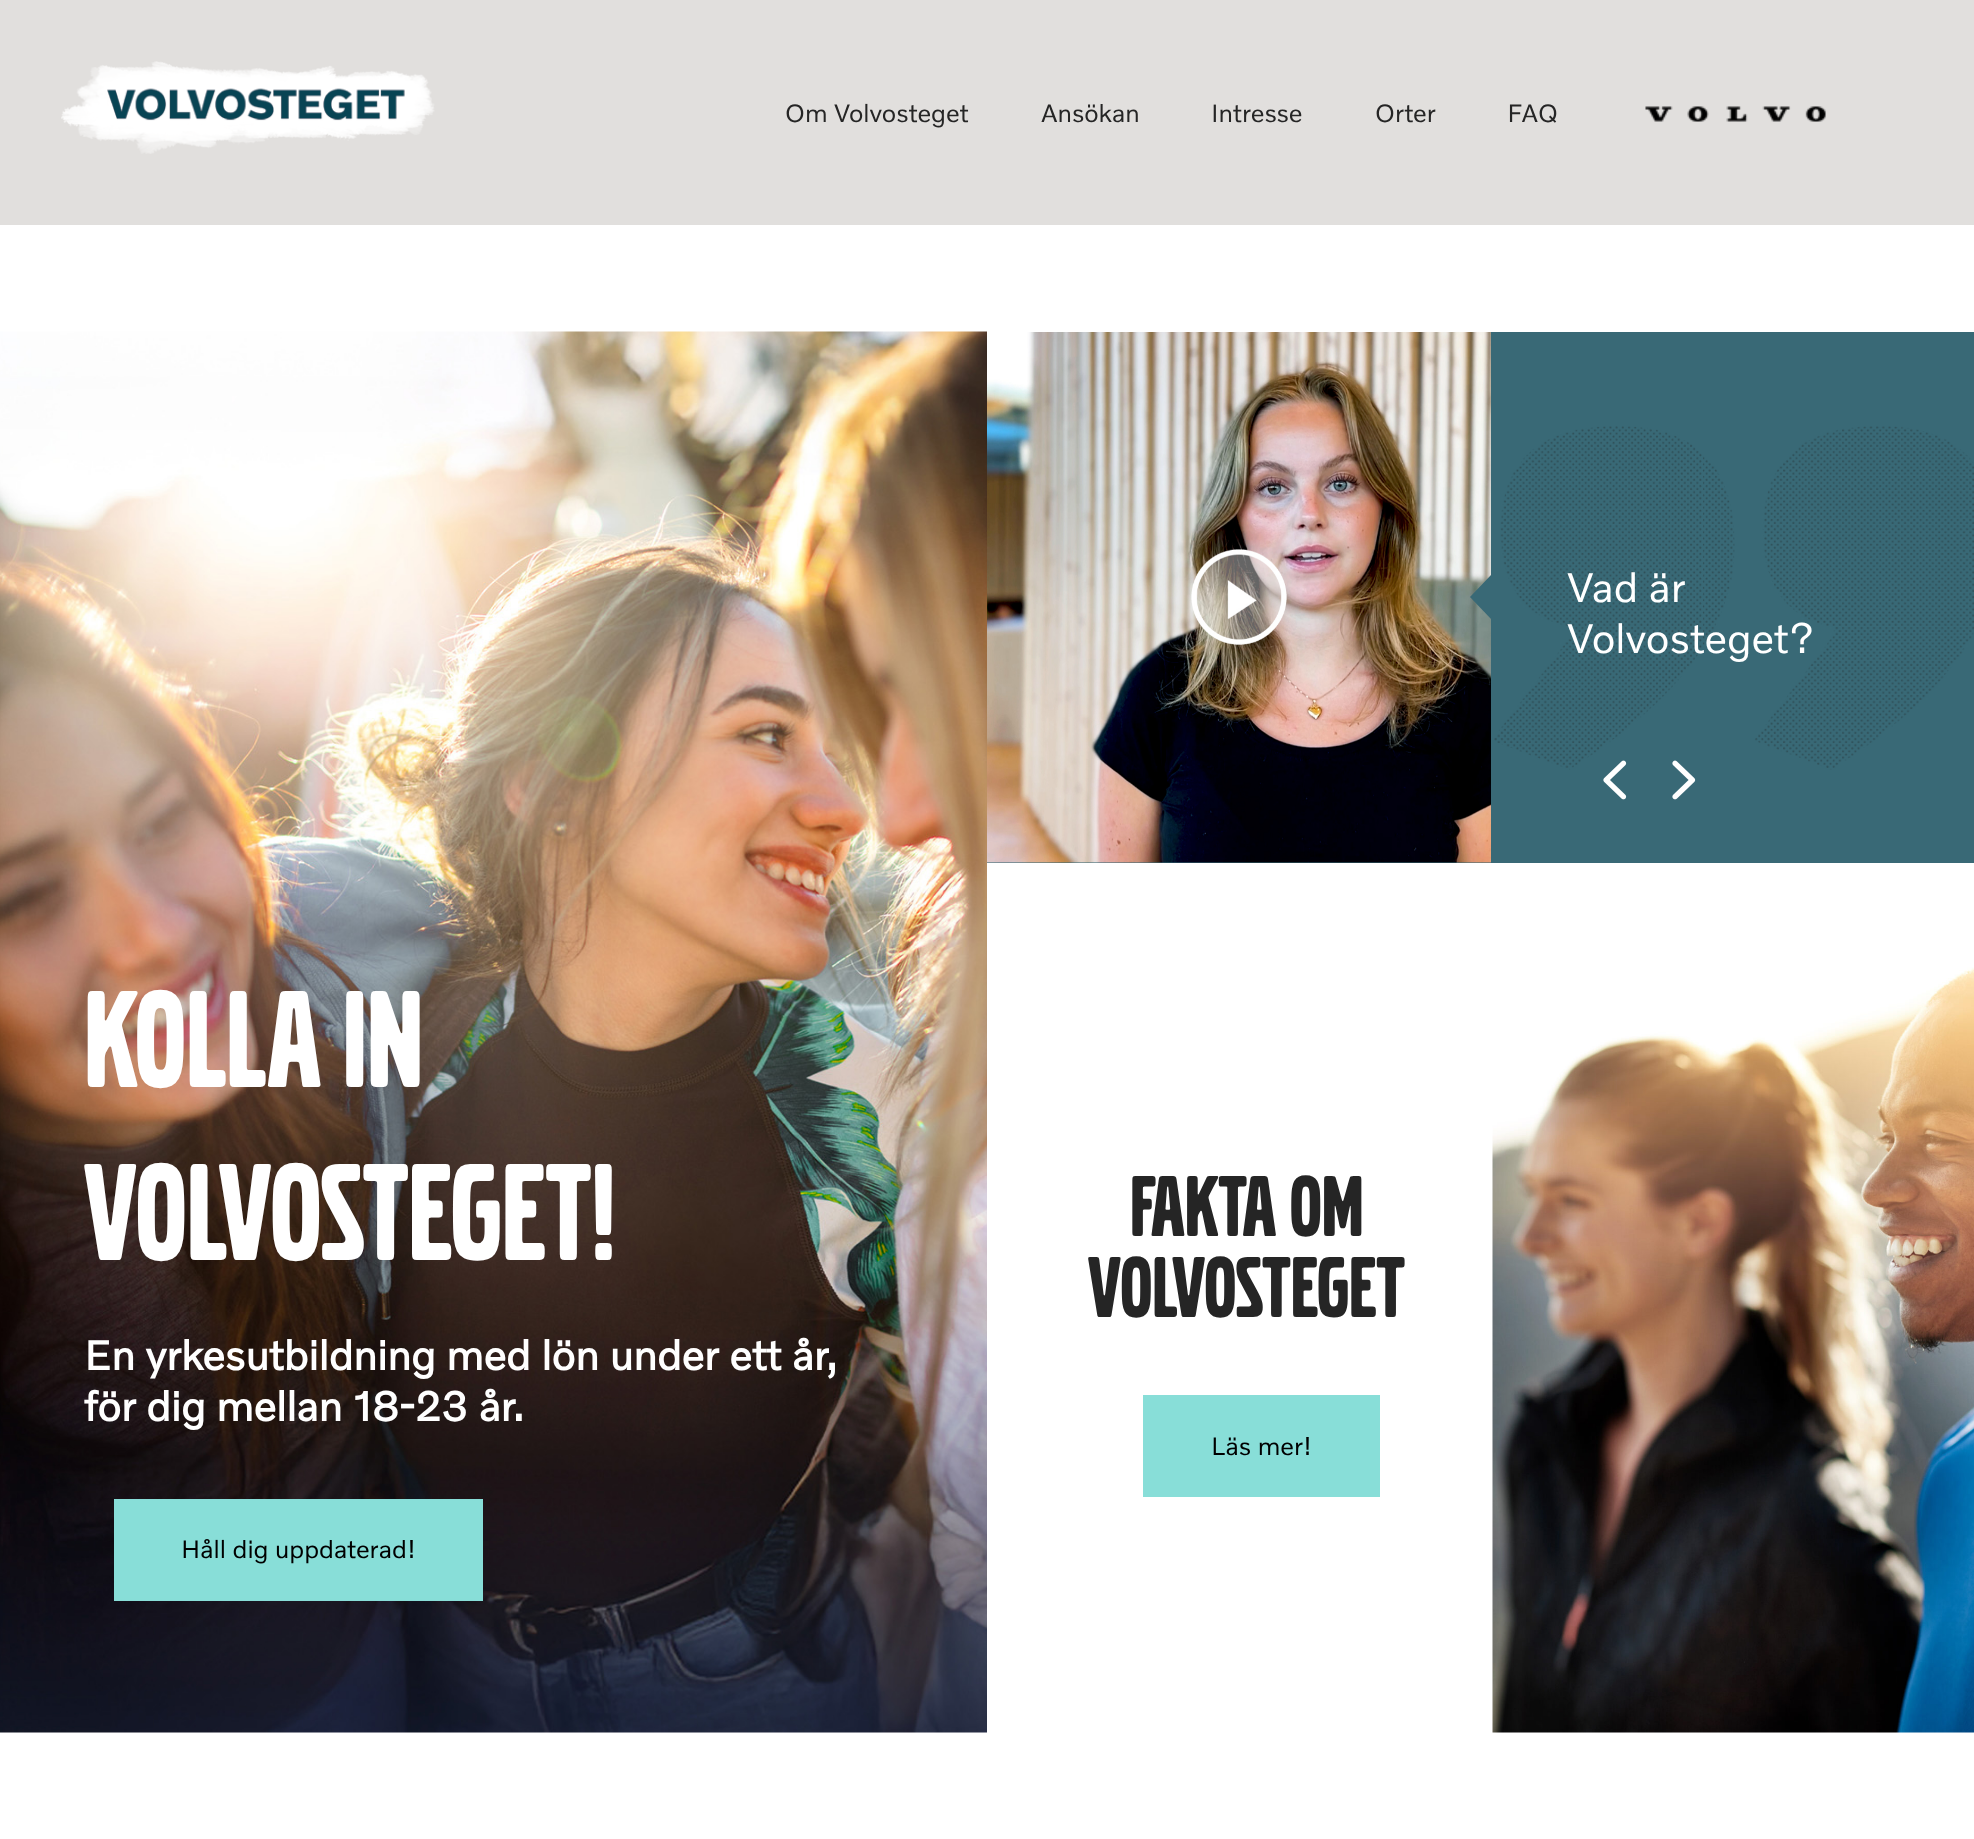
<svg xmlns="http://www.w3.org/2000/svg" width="1974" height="1839">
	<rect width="100%" height="100%" fill="#FFFFFF" />
	<rect x="0" y="0" width="1974" height="225" fill="#E1DFDD" />
	<image x="61" y="61" width="374" height="93" href="assets/img1.png" />
	<g font-family="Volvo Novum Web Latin" font-size="25.5" fill="#252525">
		<text x="785" y="122">Om Volvosteget</text>
		<text x="1041" y="122">Ansökan</text>
		<text x="1211" y="122">Intresse</text>
		<text x="1375" y="122">Orter</text>
		<text x="1507" y="122">FAQ</text>
	</g>
	<image x="1645" y="106" width="181" height="16" href="assets/img2.png" />
	<image x="0" y="331" width="987" height="1402" href="assets/img3.png" />
	<g font-family="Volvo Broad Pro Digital" font-size="144" font-weight="500" fill="#FFFFFF">
		<text x="84" y="1087">Kolla in</text>
		<text x="84" y="1260">Volvosteget!</text>
	</g>
	<g font-family="Volvo Novum Web Latin" font-size="42" font-weight="700" fill="#FFFFFF">
		<text x="84" y="1370">En yrkesutbildning med lön under ett år,</text>
		<text x="84" y="1421">för dig mellan 18-23 år.</text>
	</g>
	<rect x="114" y="1499" width="369" height="102" fill="#88DED8" />
	<text x="181" y="1558" font-family="Volvo Novum Web Latin" font-size="25.5" fill="#000000">Håll dig uppdaterad!</text>
	<rect x="987" y="332" width="987" height="531" fill="#396976" />
	<image x="987" y="332" width="504" height="531" href="assets/img4.png" />
	<image x="1494" y="426" width="480" height="344" href="assets/img5.png" />
	<path d="M1492 574V620L1470 597Z" fill="#396976" />
	<g font-family="Volvo Novum Web Latin" font-size="42" fill="#FFFFFF">
		<text x="1567" y="602">Vad är</text>
		<text x="1567" y="653">Volvosteget?</text>
	</g>
	<image x="1603" y="760" width="24" height="40" href="assets/img6.png" />
	<image x="1672" y="760" width="24" height="40" href="assets/img7.png" />
	<g font-family="Volvo Broad Pro Digital" font-size="90" font-weight="500" fill="#252525">
		<text x="1130" y="1236">Fakta om</text>
		<text x="1088" y="1317">Volvosteget</text>
	</g>
	<rect x="1143" y="1395" width="237" height="102" fill="#88DED8" />
	<text x="1211" y="1455" font-family="Volvo Novum Web Latin" font-size="25.5" fill="#000000">Läs mer!</text>
	<image x="1492" y="967" width="482" height="766" href="assets/img8.png" />
</svg>
